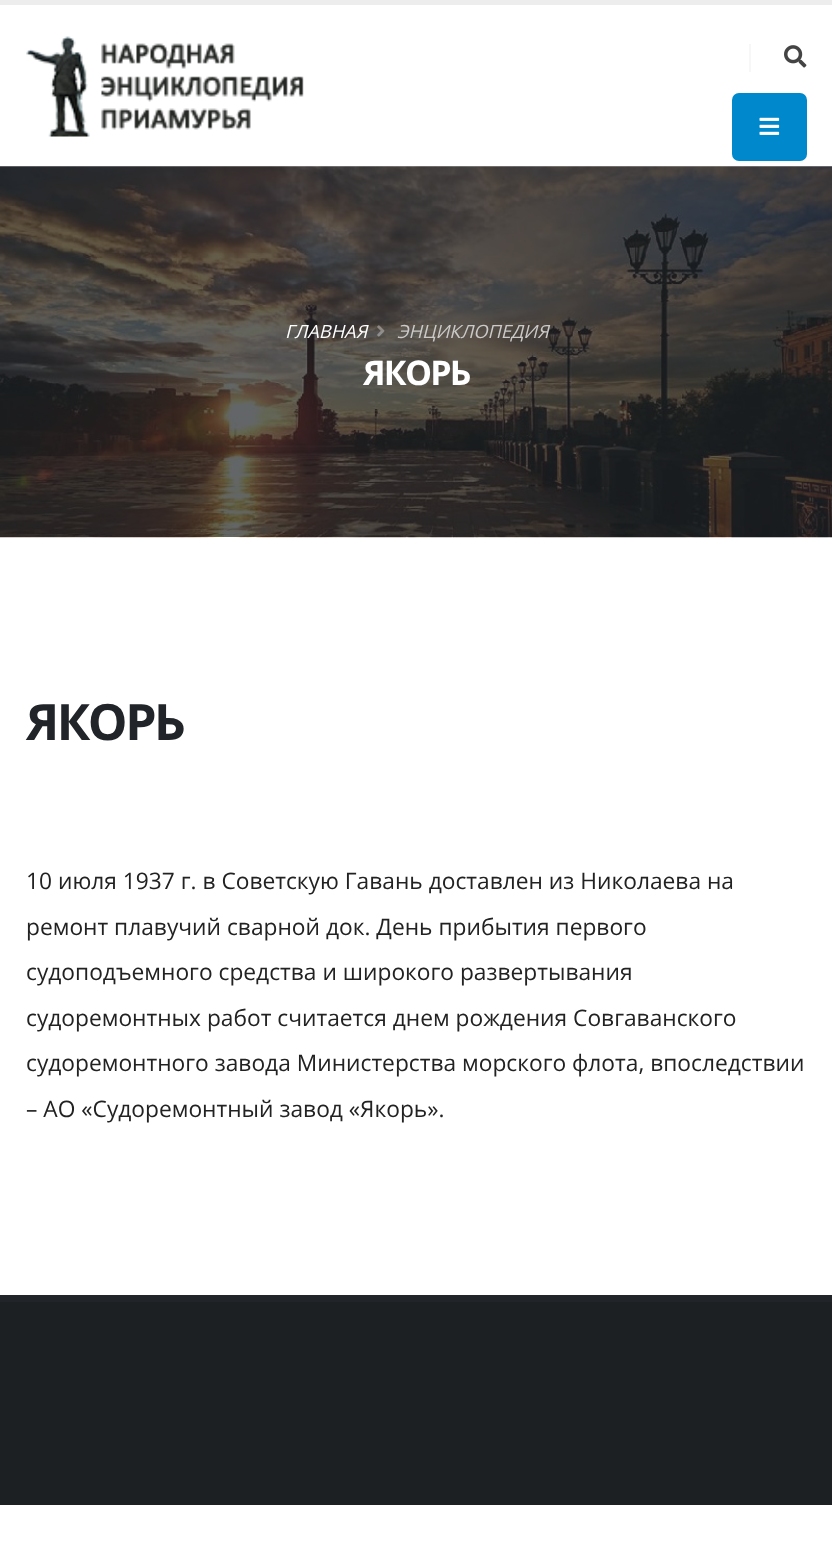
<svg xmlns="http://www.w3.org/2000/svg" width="832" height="1551">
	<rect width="100%" height="100%" fill="#FFFFFF" />
	<rect x="0" y="0" width="832" height="5" fill="#EDEDED" />
	<image x="26" y="36" width="278" height="101" href="assets/img1.png" />
	<rect x="749" y="44" width="2" height="28" fill="#F7F7F7" />
	<image x="784" y="45" width="23" height="23" href="assets/img2.png" />
	<rect x="732" y="93" width="75" height="68" rx="7" fill="#0088CC" />
	<image x="759" y="117" width="21" height="18" href="assets/img3.png" />
	<image x="0" y="166" width="832" height="372" href="assets/img4.png" />
	<text x="285" y="338" font-family="Open Sans" font-size="18.25" font-style="italic" fill="#FFFFFF">ГЛАВНАЯ</text>
	<image x="377" y="325" width="8" height="12" href="assets/img5.png" />
	<text x="397" y="338" font-family="Open Sans" font-size="18.25" font-style="italic" fill="#CBCAC8">ЭНЦИКЛОПЕДИЯ</text>
	<text x="363" y="385" font-family="Open Sans" font-size="34" font-weight="700" letter-spacing="-1.75" fill="#FFFFFF">ЯКОРЬ</text>
	<text x="26" y="740" font-family="Open Sans" font-size="50" font-weight="700" letter-spacing="-2.5" fill="#212529">ЯКОРЬ</text>
	<g font-family="Open Sans" font-size="22.75" fill="#222222">
		<text x="26" y="889">10 июля 1937 г. в Советскую Гавань доставлен из Николаева на</text>
		<text x="26" y="935">ремонт плавучий сварной док. День прибытия первого</text>
		<text x="26" y="980">судоподъемного средства и широкого развертывания</text>
		<text x="26" y="1026">судоремонтных работ считается днем рождения Совгаванского</text>
		<text x="26" y="1071">судоремонтного завода Министерства морского флота, впоследствии</text>
		<text x="26" y="1117">– АО «Судоремонтный завод «Якорь».</text>
	</g>
	<rect x="0" y="1295" width="832" height="7" fill="#212529" />
	<rect x="0" y="1302" width="832" height="203" fill="#1C2023" />
</svg>
